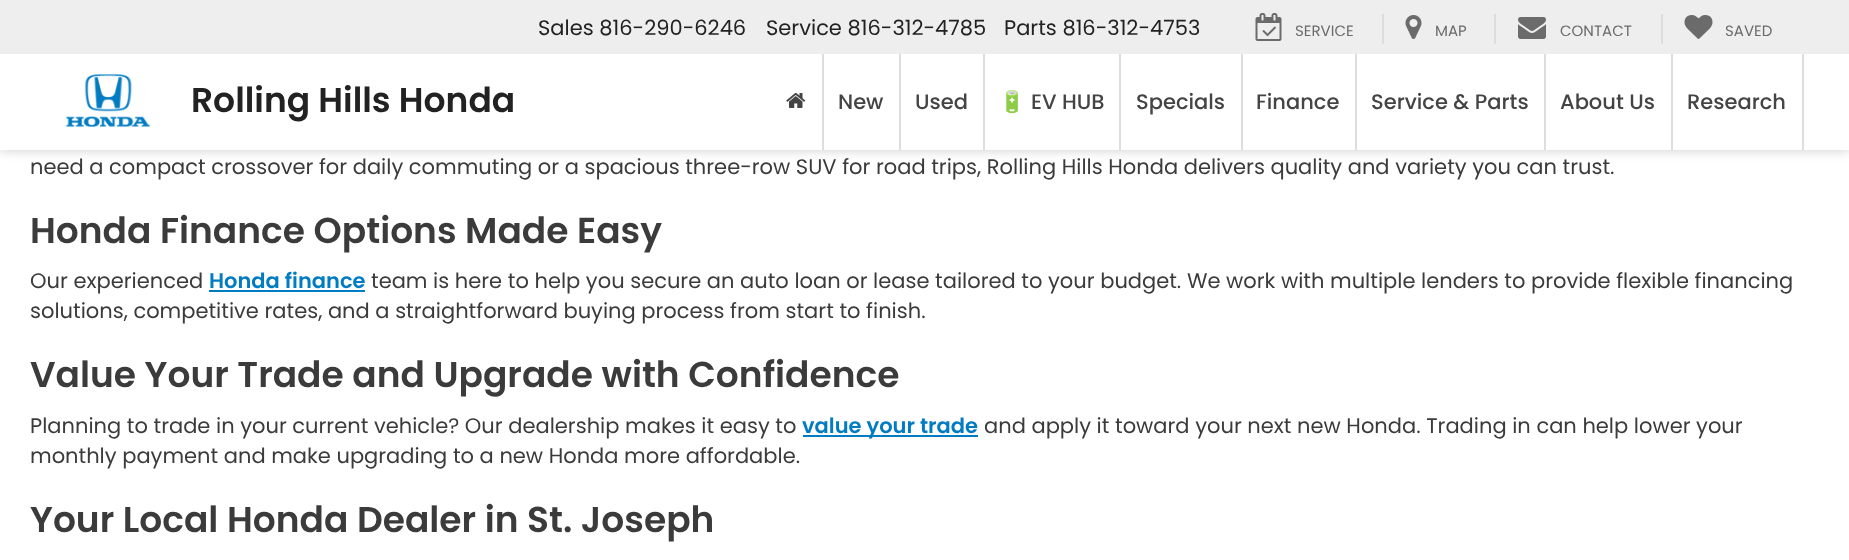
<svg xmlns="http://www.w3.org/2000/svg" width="1849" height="560">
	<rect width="100%" height="100%" fill="#FFFFFF" />
	<rect x="0" y="0" width="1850" height="150" fill="#000000" fill-opacity="0.2" filter="blur(6px)" />
	<rect x="0" y="54" width="1849" height="96" fill="#FFFFFF" />
	<rect x="0" y="0" width="1849" height="54" fill="#EEEEEE" />
	<g font-family="Poppins" font-size="21" fill="#222222">
		<text x="538" y="35">Sales 816-290-6246</text>
		<text x="766" y="35">Service 816-312-4785</text>
		<text x="1004" y="35">Parts 816-312-4753</text>
	</g>
	<image x="1255" y="13" width="27" height="28" href="assets/img1.png" />
	<text x="1295" y="36" font-family="Poppins" font-size="15" fill="#6B6B6B">SERVICE</text>
	<rect x="1382" y="14" width="2" height="30" fill="#DDDDDD" />
	<image x="1405" y="15" width="17" height="24" href="assets/img2.png" />
	<text x="1435" y="36" font-family="Poppins" font-size="15" fill="#6B6B6B">MAP</text>
	<rect x="1494" y="14" width="2" height="30" fill="#DDDDDD" />
	<image x="1518" y="17" width="28" height="22" href="assets/img3.png" />
	<text x="1560" y="36" font-family="Poppins" font-size="15" fill="#6B6B6B">CONTACT</text>
	<rect x="1661" y="14" width="2" height="30" fill="#DDDDDD" />
	<image x="1684" y="15" width="29" height="24" href="assets/img4.png" />
	<text x="1725" y="36" font-family="Poppins" font-size="15" fill="#6B6B6B">SAVED</text>
	<image x="65" y="74" width="86" height="53" href="assets/img5.png" />
	<text x="191" y="112" font-family="Poppins" font-size="34.5" font-weight="600" fill="#222222">Rolling Hills Honda</text>
	<rect x="822" y="54" width="2" height="96" fill="#DDDDDD" />
	<image x="786" y="93" width="20" height="15" href="assets/img6.png" />
	<rect x="899" y="54" width="2" height="96" fill="#DDDDDD" />
	<text x="838" y="109" font-family="Poppins" font-size="21" font-weight="500" fill="#444444">New</text>
	<rect x="983" y="54" width="2" height="96" fill="#DDDDDD" />
	<text x="915" y="109" font-family="Poppins" font-size="21" font-weight="500" fill="#444444">Used</text>
	<rect x="1119" y="54" width="2" height="96" fill="#DDDDDD" />
	<text x="999" y="109" font-family="Noto Color Emoji" font-size="21" fill="#444444">🔋</text>
	<text x="1031" y="109" font-family="Poppins" font-size="21" font-weight="500" fill="#444444">EV HUB</text>
	<rect x="1241" y="54" width="2" height="96" fill="#DDDDDD" />
	<text x="1136" y="109" font-family="Poppins" font-size="21" font-weight="500" fill="#444444">Specials</text>
	<rect x="1355" y="54" width="2" height="96" fill="#DDDDDD" />
	<text x="1256" y="109" font-family="Poppins" font-size="21" font-weight="500" fill="#444444">Finance</text>
	<rect x="1544" y="54" width="2" height="96" fill="#DDDDDD" />
	<text x="1371" y="109" font-family="Poppins" font-size="21" font-weight="500" fill="#444444">Service &amp; Parts</text>
	<rect x="1671" y="54" width="2" height="96" fill="#DDDDDD" />
	<text x="1560" y="109" font-family="Poppins" font-size="21" font-weight="500" fill="#444444">About Us</text>
	<rect x="1802" y="54" width="2" height="96" fill="#DDDDDD" />
	<text x="1687" y="109" font-family="Poppins" font-size="21" font-weight="500" fill="#444444">Research</text>
	<text x="30" y="174" font-family="Poppins" font-size="21" fill="#3B3B3B">need a compact crossover for daily commuting or a spacious three-row SUV for road trips, Rolling Hills Honda delivers quality and variety you can trust.</text>
	<text x="30" y="243" font-family="Poppins" font-size="36" font-weight="600" fill="#3B3B3B">Honda Finance Options Made Easy</text>
	<text x="30" y="288" font-family="Poppins" font-size="21" fill="#3B3B3B">Our experienced</text>
	<text x="209" y="288" font-family="Poppins" font-size="21" font-weight="600" fill="#007CC2">Honda finance</text>
	<rect x="209" y="290" width="156" height="2" fill="#007CC2" />
	<g font-family="Poppins" font-size="21" fill="#3B3B3B">
		<text x="371" y="288">team is here to help you secure an auto loan or lease tailored to your budget. We work with multiple lenders to provide flexible financing</text>
		<text x="30" y="318">solutions, competitive rates, and a straightforward buying process from start to finish.</text>
	</g>
	<text x="30" y="387" font-family="Poppins" font-size="36" font-weight="600" fill="#3B3B3B">Value Your Trade and Upgrade with Confidence</text>
	<text x="30" y="433" font-family="Poppins" font-size="21" fill="#3B3B3B">Planning to trade in your current vehicle? Our dealership makes it easy to</text>
	<rect x="803" y="435" width="175" height="2" fill="#007CC2" />
	<text x="802" y="433" font-family="Poppins" font-size="21" font-weight="600" fill="#007CC2">value your trade</text>
	<g font-family="Poppins" font-size="21" fill="#3B3B3B">
		<text x="984" y="433">and apply it toward your next new Honda. Trading in can help lower your</text>
		<text x="30" y="463">monthly payment and make upgrading to a new Honda more affordable.</text>
	</g>
	<text x="30" y="532" font-family="Poppins" font-size="36" font-weight="600" fill="#3B3B3B">Your Local Honda Dealer in St. Joseph</text>
</svg>
